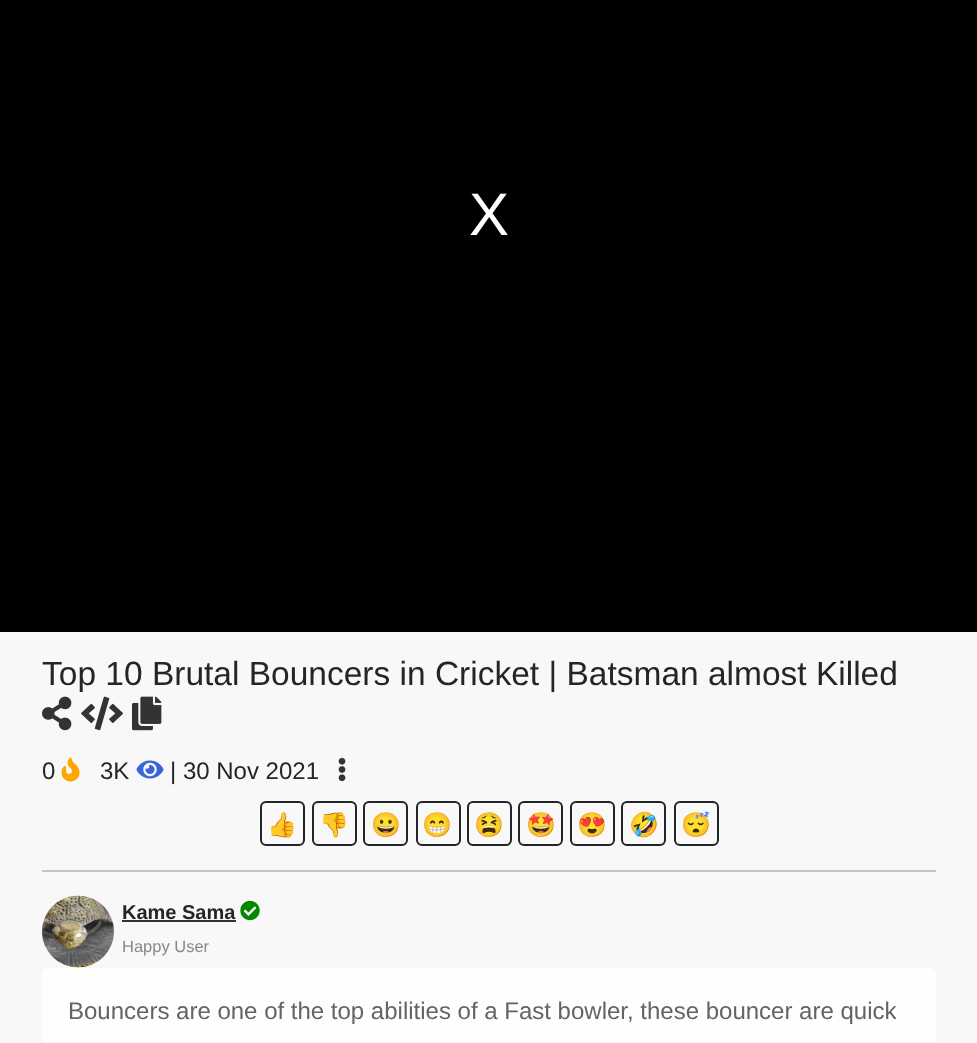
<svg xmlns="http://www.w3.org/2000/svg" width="977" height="1043">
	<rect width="100%" height="100%" fill="#F9F8F8" />
	<rect x="0" y="0" width="977" height="632" fill="#000000" />
	<text x="469" y="235" font-family="Liberation Sans" font-size="60" fill="#FFFFFF">X</text>
	<text x="42" y="685" font-family="Liberation Sans" font-size="33.5" fill="#252525">Top 10 Brutal Bouncers in Cricket | Batsman almost Killed</text>
	<image x="42" y="696" width="30" height="35" href="assets/img1.png" />
	<image x="81" y="696" width="42" height="35" href="assets/img2.png" />
	<image x="132" y="696" width="30" height="35" href="assets/img3.png" />
	<text x="42" y="779" font-family="Liberation Sans" font-size="24" fill="#252525">0</text>
	<image x="61" y="757" width="19" height="25" href="assets/img4.png" />
	<text x="100" y="779" font-family="Liberation Sans" font-size="24" fill="#252525">3K</text>
	<image x="136" y="760" width="28" height="19" href="assets/img5.png" />
	<text x="170" y="779" font-family="Liberation Sans" font-size="24" fill="#252525">| 30 Nov 2021</text>
	<image x="338" y="757" width="8" height="25" href="assets/img6.png" />
	<rect x="261" y="802" width="43" height="43" rx="5" fill="none" stroke="#212529" stroke-width="2" />
	<text x="267" y="833" font-family="Noto Color Emoji" font-size="24" fill="#000000">👍</text>
	<rect x="313" y="802" width="43" height="43" rx="5" fill="none" stroke="#212529" stroke-width="2" />
	<text x="319" y="833" font-family="Noto Color Emoji" font-size="24" fill="#000000">👎</text>
	<rect x="364" y="802" width="43" height="43" rx="5" fill="none" stroke="#212529" stroke-width="2" />
	<text x="371" y="833" font-family="Noto Color Emoji" font-size="24" fill="#000000">😀</text>
	<rect x="417" y="802" width="43" height="43" rx="5" fill="none" stroke="#212529" stroke-width="2" />
	<text x="422" y="833" font-family="Noto Color Emoji" font-size="24" fill="#000000">😁</text>
	<rect x="468" y="802" width="43" height="43" rx="5" fill="none" stroke="#212529" stroke-width="2" />
	<text x="474" y="833" font-family="Noto Color Emoji" font-size="24" fill="#000000">😫</text>
	<rect x="519" y="802" width="43" height="43" rx="5" fill="none" stroke="#212529" stroke-width="2" />
	<text x="526" y="833" font-family="Noto Color Emoji" font-size="24" fill="#000000">🤩</text>
	<rect x="571" y="802" width="43" height="43" rx="5" fill="none" stroke="#212529" stroke-width="2" />
	<text x="577" y="833" font-family="Noto Color Emoji" font-size="24" fill="#000000">😍</text>
	<rect x="622" y="802" width="43" height="43" rx="5" fill="none" stroke="#212529" stroke-width="2" />
	<text x="629" y="833" font-family="Noto Color Emoji" font-size="24" fill="#000000">🤣</text>
	<rect x="675" y="802" width="43" height="43" rx="5" fill="none" stroke="#212529" stroke-width="2" />
	<text x="681" y="833" font-family="Noto Color Emoji" font-size="24" fill="#000000">😴</text>
	<rect x="42" y="870" width="894" height="2" fill="#C3C3C4" />
	<image x="42" y="895" width="72" height="73" href="assets/img7.png" />
	<text x="122" y="919" font-family="Liberation Sans" font-size="20" font-weight="700" fill="#252525">Kame Sama</text>
	<rect x="122" y="920" width="114" height="2" fill="#333333" />
	<image x="240" y="900" width="20" height="21" href="assets/img8.png" />
	<text x="122" y="952" font-family="Liberation Sans" font-size="16.5" fill="#888888">Happy User</text>
	<rect x="42" y="968" width="894" height="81" rx="6" fill="#FEFEFE" />
	<text x="68" y="1019" font-family="Liberation Sans" font-size="24" fill="#636464">Bouncers are one of the top abilities of a Fast bowler, these bouncer are quick</text>
</svg>
